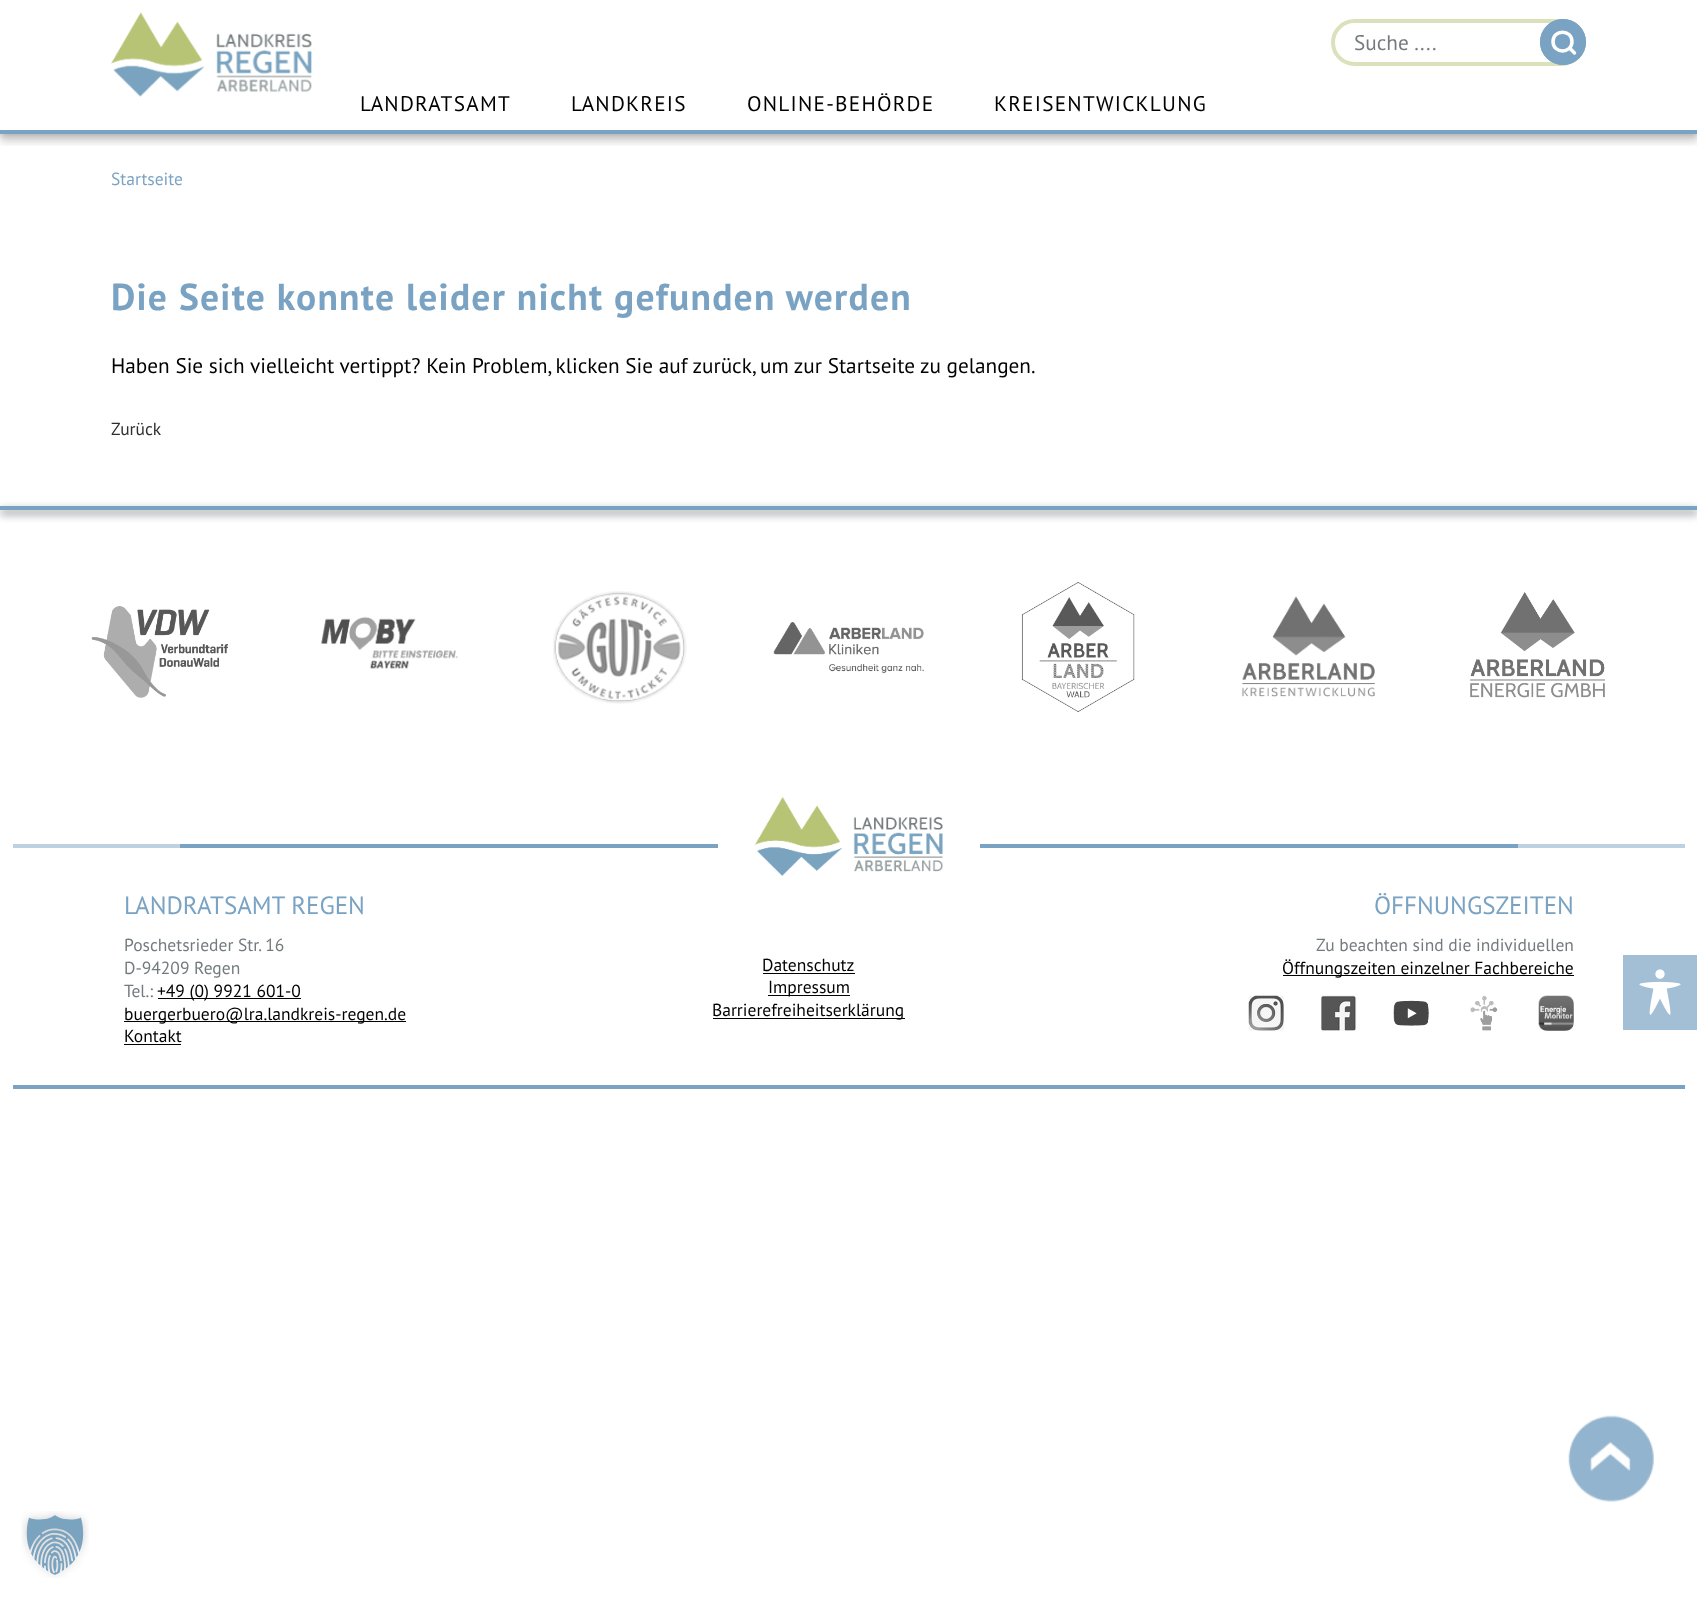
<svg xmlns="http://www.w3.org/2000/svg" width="1697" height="1600">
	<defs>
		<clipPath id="clip1"><rect x="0" y="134" width="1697" height="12" /></clipPath>
	</defs>
	<rect width="100%" height="100%" fill="#FFFFFF" />
	<rect x="0" y="0" width="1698" height="134" fill="#000000" fill-opacity="0.2" filter="blur(3px)" />
	<rect x="0" y="0" width="1697" height="130" fill="#FFFFFF" />
	<g clip-path="url(#clip1)">
		<rect x="0" y="8" width="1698" height="133" fill="#000000" fill-opacity="0.2" filter="blur(4px)" />
	</g>
	<image x="111" y="12" width="201" height="85" href="assets/img1.png" />
	<rect x="1333" y="21" width="250" height="43" rx="21.5" fill="none" stroke="#DBE2BB" stroke-width="4" />
	<text x="1354" y="50" font-family="PT Sans" font-size="21.25" fill="#737B7E">Suche ....</text>
	<circle cx="1563" cy="42" r="23" fill="#7AA3C3" />
	<path d="M1572 41.5C1572 54 1553 54 1553 41.5C1553 29 1572 29 1572 41.5ZM1574.5 53L1569.5 48" fill="none" stroke="#FFFFFF" stroke-width="3.5" stroke-linecap="round" stroke-linejoin="round" />
	<circle cx="1563" cy="42" r="20.5" fill="none" stroke="#7AA3C3" stroke-width="5" />
	<rect x="0" y="130" width="1697" height="4" fill="#7AA3C3" />
	<g font-family="PT Sans" font-size="21.25" letter-spacing="1.25" fill="#000000">
		<text x="360" y="111">LANDRATSAMT</text>
		<text x="571" y="111">LANDKREIS</text>
		<text x="747" y="111">ONLINE-BEHÖRDE</text>
		<text x="994" y="111">KREISENTWICKLUNG</text>
	</g>
	<text x="111" y="185" font-family="PT Sans" font-size="17.5" fill="#7AA3C3">Startseite</text>
	<text x="111" y="310" font-family="PT Sans" font-size="37.5" font-weight="700" letter-spacing="1.25" fill="#7AA3C3">Die Seite konnte leider nicht gefunden werden</text>
	<text x="111" y="373" font-family="PT Sans" font-size="21.25" fill="#000000">Haben Sie sich vielleicht vertippt? Kein Problem, klicken Sie auf zurück, um zur Startseite zu gelangen.</text>
	<text x="111" y="435" font-family="PT Sans" font-size="17.5" fill="#2E2E2E">Zurück</text>
	<rect x="0" y="510" width="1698" height="4" fill="#737B7E" filter="blur(4px)" />
	<rect x="0" y="506" width="1697" height="4" fill="#7AA3C3" />
	<image x="91" y="606" width="137" height="92" href="assets/img2.png" />
	<image x="321" y="616" width="137" height="53" href="assets/img3.png" />
	<image x="553" y="591" width="134" height="113" href="assets/img4.png" />
	<image x="773" y="622" width="151" height="52" href="assets/img5.png" />
	<image x="1021" y="582" width="114" height="130" href="assets/img6.png" />
	<image x="1241" y="596" width="134" height="101" href="assets/img7.png" />
	<image x="1470" y="592" width="135" height="106" href="assets/img8.png" />
	<rect x="13" y="844" width="1672" height="4" fill="#BDD1E1" />
	<rect x="180" y="844" width="1338" height="4" fill="#7AA3C3" />
	<rect x="718" y="844" width="262" height="4" fill="#FFFFFF" />
	<image x="755" y="797" width="188" height="79" href="assets/img9.png" />
	<rect x="13" y="1085" width="1672" height="4" fill="#7AA3C3" />
	<text x="124" y="914" font-family="PT Sans" font-size="25" fill="#7AA3C3">LANDRATSAMT REGEN</text>
	<g font-family="PT Sans" font-size="17.5" fill="#737B7E">
		<text x="124" y="951">Poschetsrieder Str. 16</text>
		<text x="124" y="974">D-94209 Regen</text>
		<text x="124" y="997">Tel.:</text>
	</g>
	<rect x="158" y="998" width="143" height="1" fill="#000000" />
	<text x="157" y="997" font-family="PT Sans" font-size="17.5" fill="#000000">+49 (0) 9921 601-0</text>
	<rect x="124" y="1021" width="282" height="1" fill="#000000" />
	<g font-family="PT Sans" font-size="17.5" fill="#000000">
		<text x="124" y="1020">buergerbuero@lra.landkreis-regen.de</text>
		<text x="124" y="1042">Kontakt</text>
	</g>
	<rect x="124" y="1044" width="57" height="1" fill="#000000" />
	<text x="762" y="971" font-family="PT Sans" font-size="17.5" fill="#000000">Datenschutz</text>
	<rect x="763" y="973" width="92" height="1" fill="#000000" />
	<rect x="768" y="995" width="82" height="1" fill="#000000" />
	<text x="768" y="993" font-family="PT Sans" font-size="17.5" fill="#000000">Impressum</text>
	<rect x="713" y="1018" width="192" height="1" fill="#000000" />
	<text x="712" y="1016" font-family="PT Sans" font-size="17.5" fill="#000000">Barrierefreiheitserklärung</text>
	<text x="1374" y="914" font-family="PT Sans" font-size="25" fill="#7AA3C3">ÖFFNUNGSZEITEN</text>
	<text x="1316" y="951" font-family="PT Sans" font-size="17.5" fill="#737B7E">Zu beachten sind die individuellen</text>
	<rect x="1283" y="975" width="291" height="1" fill="#000000" />
	<text x="1282" y="974" font-family="PT Sans" font-size="17.5" fill="#000000">Öffnungszeiten einzelner Fachbereiche</text>
	<image x="1248" y="995" width="36" height="36" href="assets/img10.png" />
	<image x="1321" y="995" width="36" height="36" href="assets/img11.png" />
	<image x="1393" y="1000" width="36" height="26" href="assets/img12.png" />
	<image x="1470" y="995" width="28" height="36" href="assets/img13.png" />
	<image x="1538" y="995" width="36" height="36" href="assets/img14.png" />
	<rect x="1623" y="955" width="74" height="75" fill="#A2BFD5" />
	<image x="1639" y="969" width="42" height="46" href="assets/img15.png" />
	<image x="1568" y="1415" width="86" height="87" href="assets/img16.png" />
	<image x="21" y="1511" width="68" height="67" href="assets/img17.png" />
</svg>
